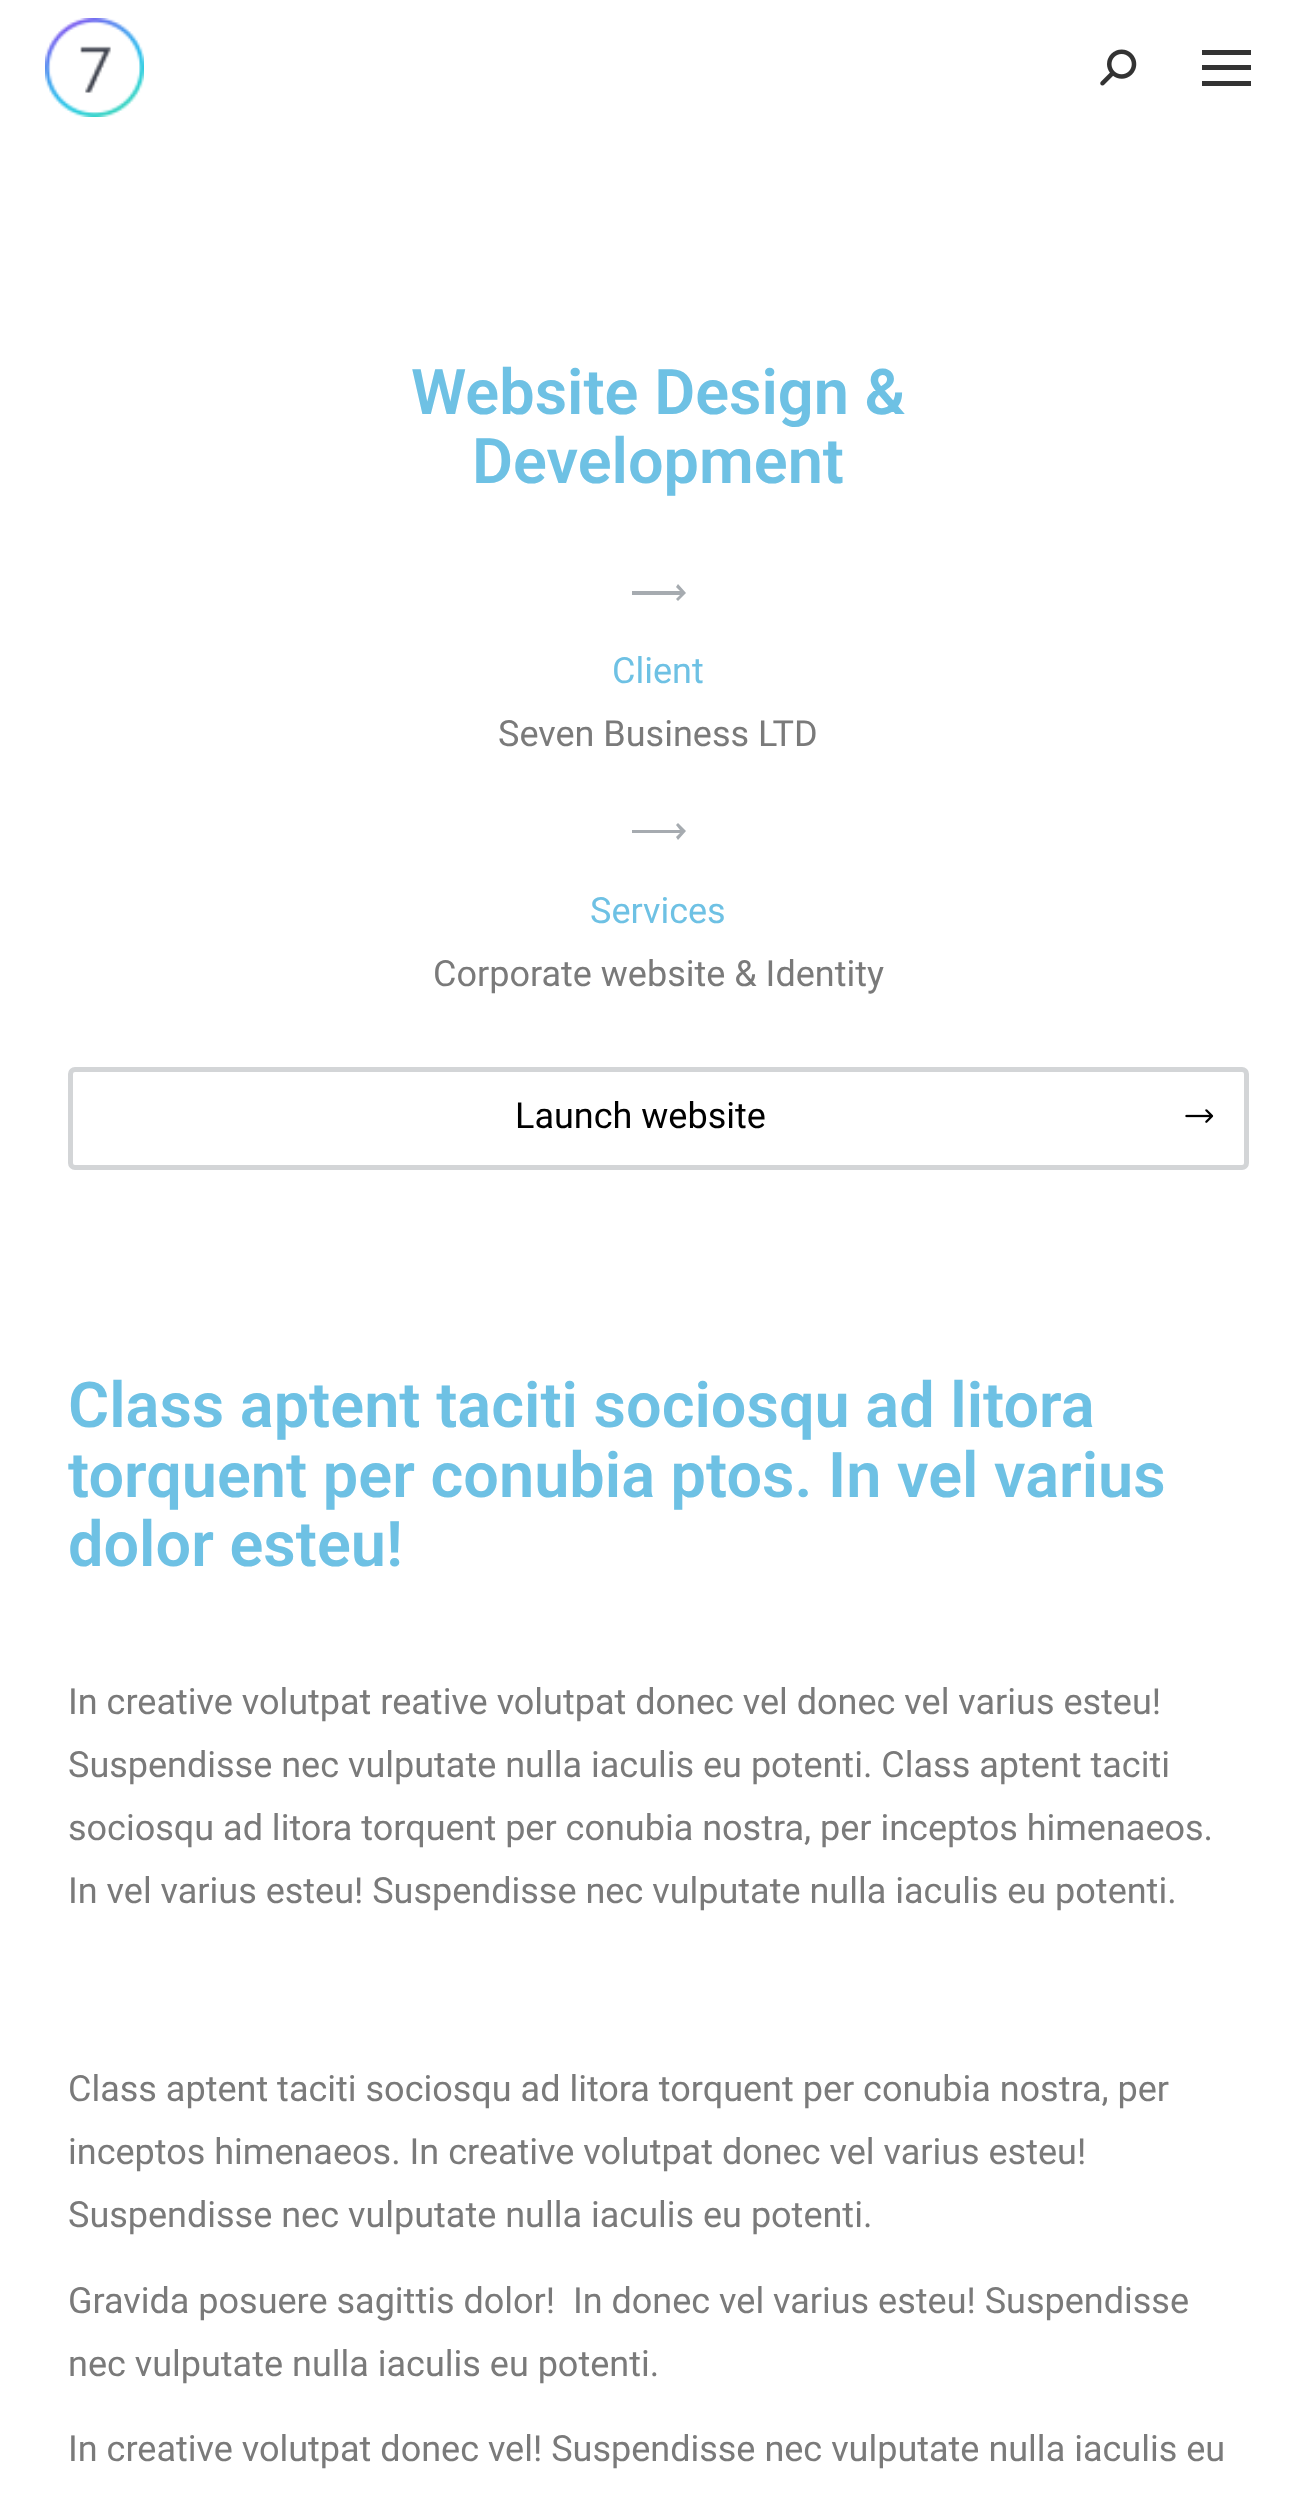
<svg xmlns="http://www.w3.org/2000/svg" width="1315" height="2510">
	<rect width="100%" height="100%" fill="#FFFFFF" />
	<image x="45" y="18" width="99" height="99" href="assets/img1.png" />
	<image x="1100" y="49" width="37" height="37" href="assets/img2.png" />
	<rect x="1202" y="50" width="49" height="5" fill="#333333" />
	<rect x="1202" y="65" width="49" height="5" fill="#333333" />
	<rect x="1202" y="81" width="49" height="5" fill="#333333" />
	<g font-family="Roboto" font-size="63" font-weight="600" fill="#6EC1E4">
		<text x="411" y="414">Website Design &amp;</text>
		<text x="472" y="483">Development</text>
	</g>
	<path d="M632 595H680L676 599L678 601L686 593L678 584L676 587L680 591H632Z" fill="#A6ABB0" />
	<text x="612" y="683" font-family="Roboto" font-size="36" fill="#6EC1E4">Client</text>
	<text x="498" y="746" font-family="Roboto" font-size="36" fill="#7A7A7A">Seven Business LTD</text>
	<path d="M632 833H680L676 837L678 840L686 831L678 823L676 825L680 830H632Z" fill="#A6ABB0" />
	<text x="590" y="923" font-family="Roboto" font-size="36" fill="#6EC1E4">Services</text>
	<text x="433" y="986" font-family="Roboto" font-size="36" fill="#7A7A7A">Corporate website &amp; Identity</text>
	<rect x="70.5" y="1069.5" width="1176" height="98" rx="4.5" fill="none" stroke="#D3D5D7" stroke-width="5" />
	<text x="515" y="1128" font-family="Roboto" font-size="36" fill="#000000">Launch website</text>
	<image x="1185" y="1109" width="29" height="14" href="assets/img3.png" />
	<g font-family="Roboto" font-size="63" font-weight="600" fill="#6EC1E4">
		<text x="68" y="1427">Class aptent taciti sociosqu ad litora</text>
		<text x="68" y="1497">torquent per conubia ptos. In vel varius</text>
		<text x="68" y="1566">dolor esteu!</text>
	</g>
	<g font-family="Roboto" font-size="36" fill="#7A7A7A">
		<text x="68" y="1714">In creative volutpat reative volutpat donec vel donec vel varius esteu!</text>
		<text x="68" y="1777">Suspendisse nec vulputate nulla iaculis eu potenti. Class aptent taciti</text>
		<text x="68" y="1840">sociosqu ad litora torquent per conubia nostra, per inceptos himenaeos.</text>
		<text x="68" y="1903">In vel varius esteu! Suspendisse nec vulputate nulla iaculis eu potenti.</text>
		<text x="68" y="2101">Class aptent taciti sociosqu ad litora torquent per conubia nostra, per</text>
		<text x="68" y="2164">inceptos himenaeos. In creative volutpat donec vel varius esteu!</text>
		<text x="68" y="2227">Suspendisse nec vulputate nulla iaculis eu potenti.</text>
		<text x="68" y="2313" xml:space="preserve">Gravida posuere sagittis dolor!  In donec vel varius esteu! Suspendisse</text>
		<text x="68" y="2376">nec vulputate nulla iaculis eu potenti.</text>
		<text x="68" y="2461">In creative volutpat donec vel! Suspendisse nec vulputate nulla iaculis eu</text>
	</g>
</svg>
